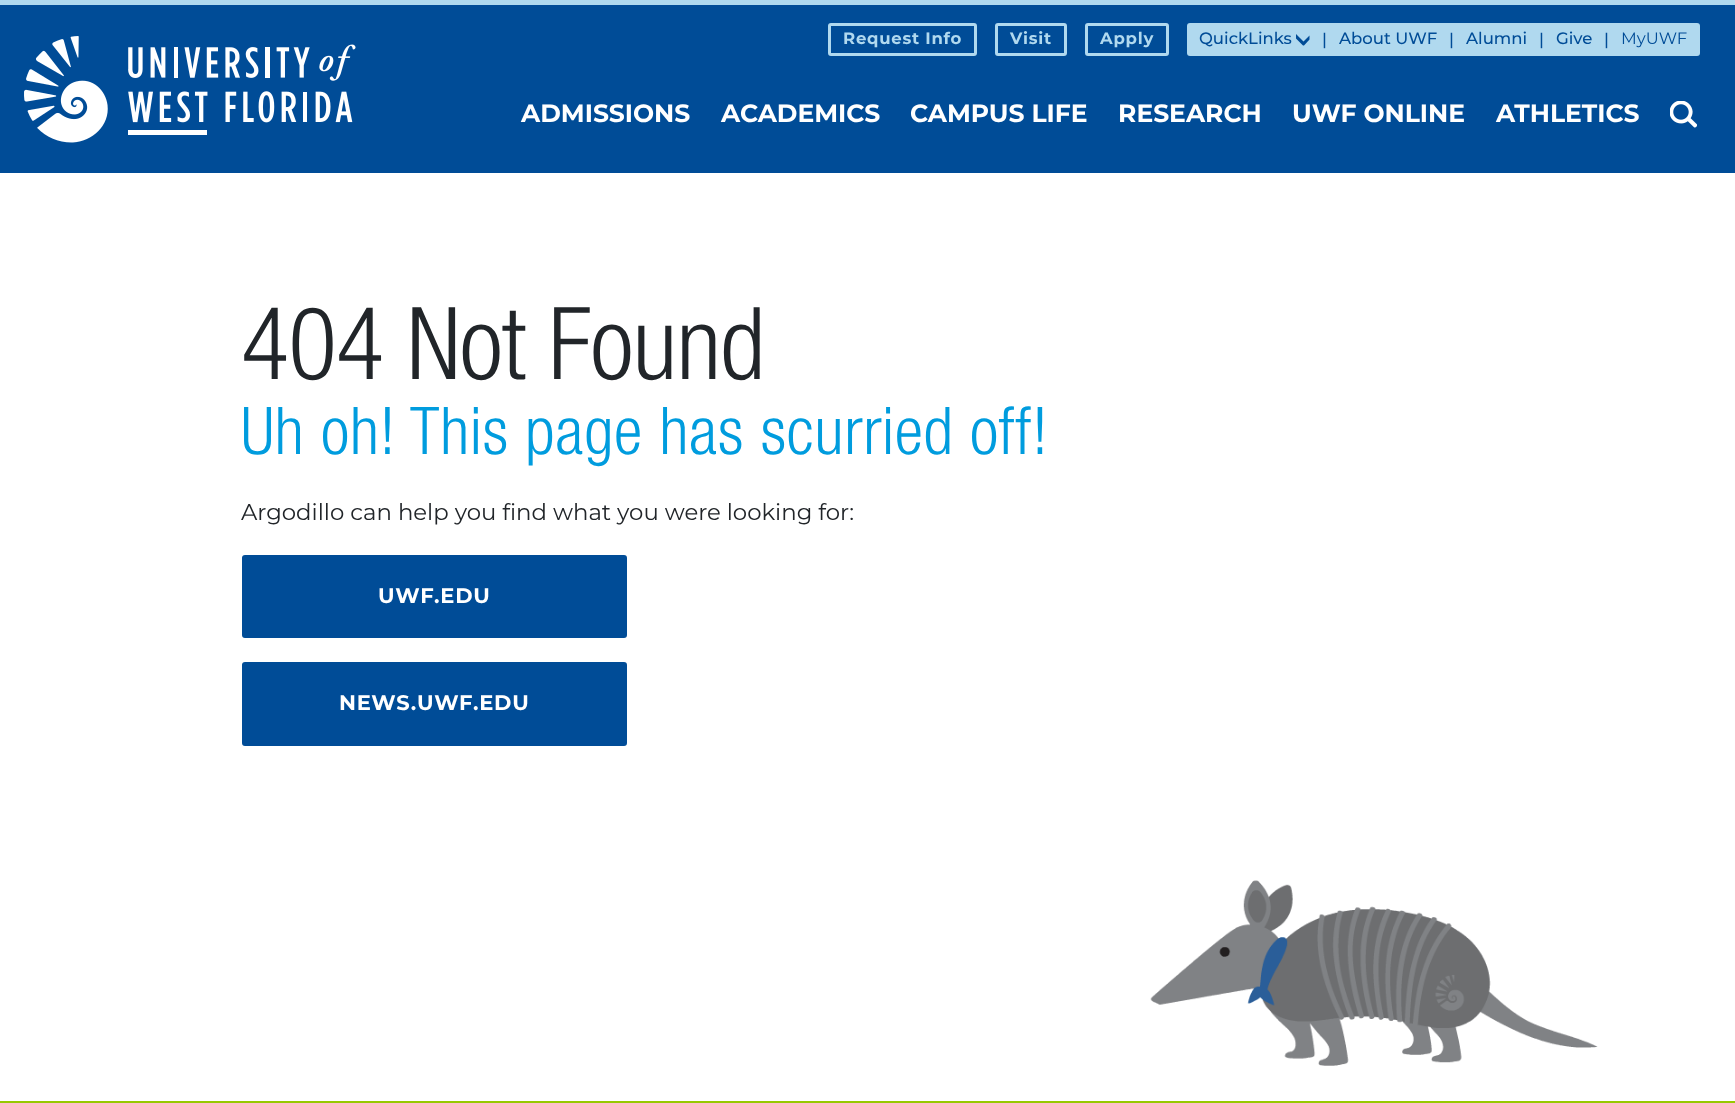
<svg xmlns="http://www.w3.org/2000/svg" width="1735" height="1103">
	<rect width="100%" height="100%" fill="#FFFFFF" />
	<rect x="0" y="5" width="1735" height="168" fill="#004C97" />
	<rect x="0" y="0" width="1735" height="5" fill="#B0D9EF" />
	<image x="24" y="36" width="332" height="107" href="assets/img1.png" />
	<rect x="829.5" y="24.5" width="146" height="30" rx="1.5" fill="none" stroke="#B0D9EF" stroke-width="3" />
	<text x="843" y="44" font-family="Montserrat" font-size="16.5" font-weight="700" letter-spacing="0.75" fill="#B0D9EF">Request Info</text>
	<rect x="996.5" y="24.5" width="69" height="30" rx="1.5" fill="none" stroke="#B0D9EF" stroke-width="3" />
	<text x="1010" y="44" font-family="Montserrat" font-size="16.5" font-weight="700" letter-spacing="0.75" fill="#B0D9EF">Visit</text>
	<rect x="1086.5" y="24.5" width="81" height="30" rx="1.5" fill="none" stroke="#B0D9EF" stroke-width="3" />
	<text x="1100" y="44" font-family="Montserrat" font-size="16.5" font-weight="700" letter-spacing="0.75" fill="#B0D9EF">Apply</text>
	<rect x="1187" y="23" width="513" height="33" rx="3" fill="#B0D9EF" />
	<text x="1199" y="44" font-family="Montserrat" font-size="16.5" font-weight="500" fill="#004C97">QuickLinks</text>
	<path d="M1303 45.5H1304L1309.5 39.5V35.5L1303.5 41.5L1296 34V38.5Z" fill="#004C97" />
	<g font-family="Montserrat" font-size="16.5" font-weight="500" fill="#004C97">
		<text x="1322" y="45">|</text>
		<text x="1339" y="44">About UWF</text>
		<text x="1449" y="45">|</text>
		<text x="1466" y="44">Alumni</text>
		<text x="1539" y="45">|</text>
		<text x="1556" y="44">Give</text>
		<text x="1604" y="45">|</text>
	</g>
	<text x="1621" y="44" font-family="Montserrat" font-size="16.5" fill="#004C97">MyUWF</text>
	<g font-family="Montserrat" font-size="25" font-weight="700" fill="#FFFFFF">
		<text x="521" y="122">ADMISSIONS</text>
		<text x="721" y="122">ACADEMICS</text>
		<text x="910" y="122">CAMPUS LIFE</text>
		<text x="1118" y="122">RESEARCH</text>
		<text x="1292" y="122">UWF ONLINE</text>
		<text x="1496" y="122">ATHLETICS</text>
	</g>
	<image x="1670" y="101" width="27" height="27" href="assets/img2.png" />
	<text x="241" y="379" font-family="Helvetica Neue" font-size="100.5" font-weight="300" letter-spacing="-0.8" fill="#212529">404 Not Found</text>
	<text x="241" y="454" font-family="Helvetica Neue" font-size="66" font-weight="300" letter-spacing="0.6" fill="#009CDE">Uh oh! This page has scurried off!</text>
	<text x="241" y="520" font-family="Montserrat" font-size="22.8" fill="#212529">Argodillo can help you find what you were looking for:</text>
	<rect x="243.5" y="556.5" width="382" height="80" rx="1.5" fill="#004C97" stroke="#004C97" stroke-width="3" />
	<text x="378" y="603" font-family="Montserrat" font-size="21" font-weight="700" letter-spacing="0.75" fill="#FFFFFF">UWF.EDU</text>
	<rect x="243.5" y="663.5" width="382" height="81" rx="1.5" fill="#004C97" stroke="#004C97" stroke-width="3" />
	<text x="339" y="710" font-family="Montserrat" font-size="21" font-weight="700" letter-spacing="0.75" fill="#FFFFFF">NEWS.UWF.EDU</text>
	<image x="1150" y="880" width="448" height="186" href="assets/img3.png" />
	<rect x="0" y="1101" width="1735" height="2" fill="#97C800" />
</svg>
